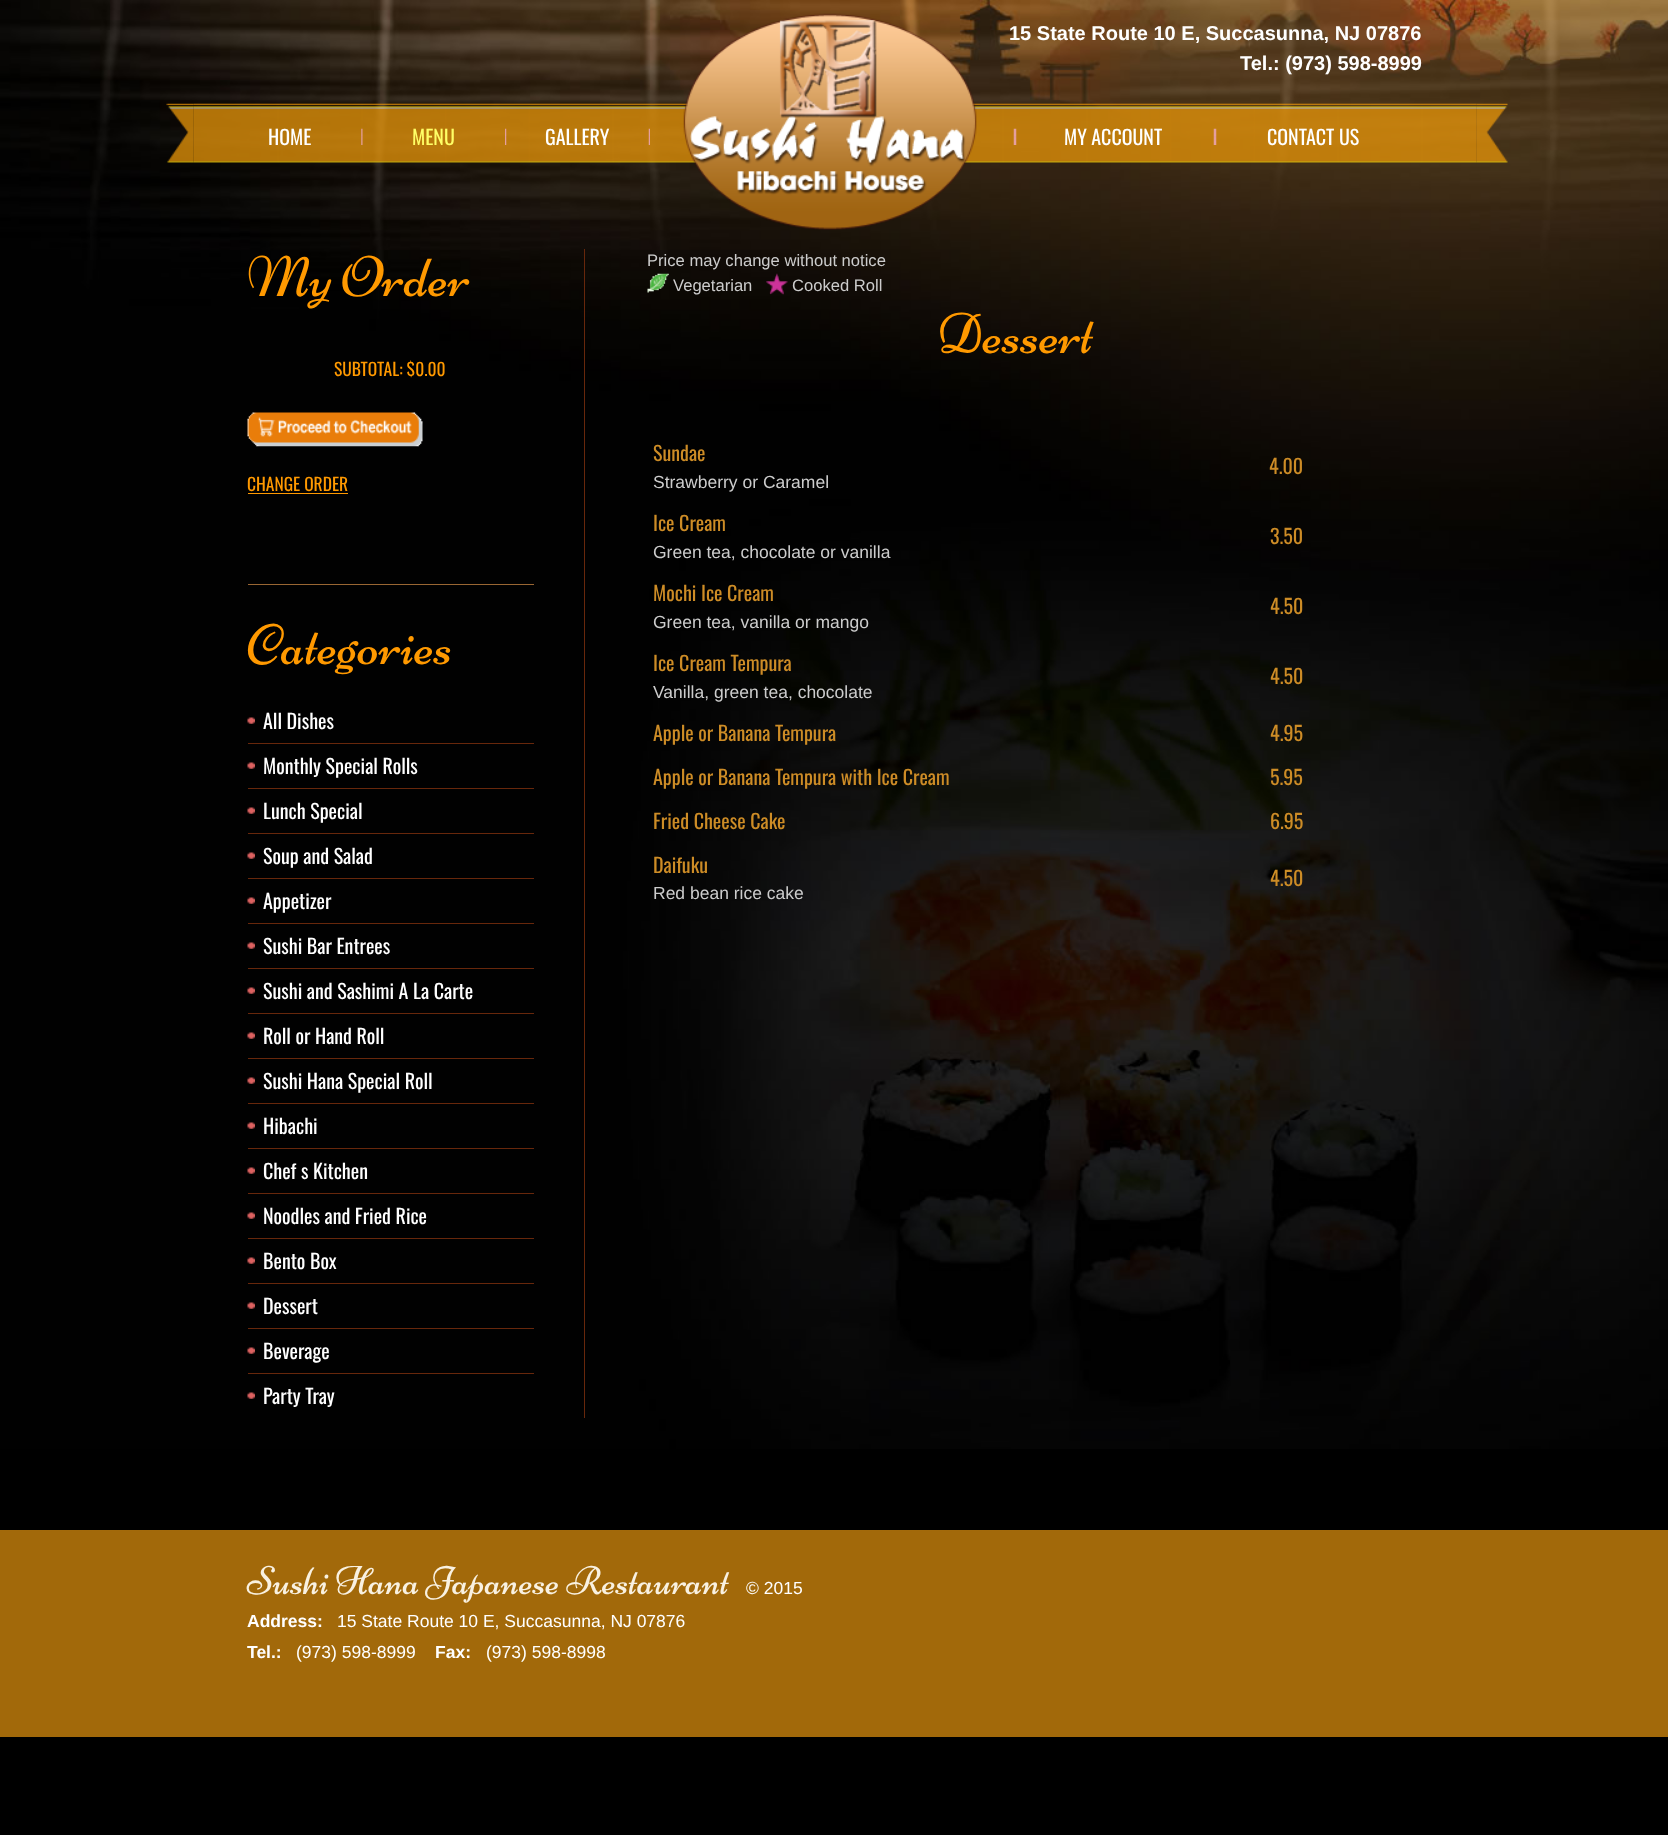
<svg xmlns="http://www.w3.org/2000/svg" width="1668" height="1835">
	<rect width="100%" height="100%" fill="#000000" />
	<image x="0" y="0" width="1668" height="1449" href="assets/img1.png" />
	<g font-family="Liberation Sans" font-size="20" font-weight="700" fill="#FFFFFF">
		<text x="1009" y="40">15 State Route 10 E, Succasunna, NJ 07876</text>
		<text x="1240" y="70">Tel.: (973) 598-8999</text>
	</g>
	<image x="193" y="103" width="505" height="60" href="assets/img2.png" />
	<image x="166" y="103" width="28" height="60" href="assets/img3.png" />
	<image x="361" y="128" width="2" height="17" href="assets/img4.png" />
	<text x="268" y="145" font-family="Oswald" font-size="20" fill="#FFFFFF">HOME</text>
	<image x="505" y="128" width="2" height="17" href="assets/img5.png" />
	<text x="412" y="145" font-family="Oswald" font-size="20" fill="#FFFF66">MENU</text>
	<image x="648" y="128" width="2" height="17" href="assets/img6.png" />
	<text x="545" y="145" font-family="Oswald" font-size="20" fill="#FFFFFF">GALLERY</text>
	<image x="962" y="103" width="515" height="60" href="assets/img8.png" />
	<image x="683" y="13" width="294" height="217" href="assets/img7.png" />
	<image x="1013" y="128" width="4" height="17" href="assets/img9.png" />
	<text x="1064" y="145" font-family="Oswald" font-size="20" fill="#FFFFFF">MY ACCOUNT</text>
	<image x="1213" y="128" width="4" height="17" href="assets/img10.png" />
	<text x="1267" y="145" font-family="Oswald" font-size="20" fill="#FFFFFF">CONTACT US</text>
	<image x="1476" y="103" width="32" height="60" href="assets/img11.png" />
	<rect x="584" y="249" width="1" height="1169" fill="#67270B" />
	<text x="247" y="296" font-family="Niconne" font-size="57.5" fill="#FF9900">My Order</text>
	<text x="334" y="376" font-family="Oswald" font-size="17.5" fill="#FF9900">SUBTOTAL: $0.00</text>
	<image x="247" y="412" width="176" height="35" href="assets/img12.png" />
	<text x="247" y="491" font-family="Oswald" font-size="17.5" fill="#FF9900">CHANGE ORDER</text>
	<rect x="248" y="493" width="100" height="1" fill="#FF9900" />
	<rect x="248" y="584" width="286" height="1" fill="#996633" />
	<text x="247" y="664" font-family="Niconne" font-size="57.5" fill="#FF9900">Categories</text>
	<image x="247" y="717" width="8" height="7" href="assets/img13.png" />
	<text x="263" y="729" font-family="Oswald" font-size="20" fill="#FFFFFF">All Dishes</text>
	<image x="247" y="762" width="8" height="7" href="assets/img13.png" />
	<rect x="248" y="743" width="286" height="1" fill="#67270B" />
	<text x="263" y="774" font-family="Oswald" font-size="20" fill="#FFFFFF">Monthly Special Rolls</text>
	<image x="247" y="807" width="8" height="7" href="assets/img13.png" />
	<rect x="248" y="788" width="286" height="1" fill="#67270B" />
	<text x="263" y="819" font-family="Oswald" font-size="20" fill="#FFFFFF">Lunch Special</text>
	<image x="247" y="852" width="8" height="7" href="assets/img13.png" />
	<rect x="248" y="833" width="286" height="1" fill="#67270B" />
	<text x="263" y="864" font-family="Oswald" font-size="20" fill="#FFFFFF">Soup and Salad</text>
	<image x="247" y="897" width="8" height="7" href="assets/img13.png" />
	<rect x="248" y="878" width="286" height="1" fill="#67270B" />
	<text x="263" y="909" font-family="Oswald" font-size="20" fill="#FFFFFF">Appetizer</text>
	<image x="247" y="942" width="8" height="7" href="assets/img13.png" />
	<rect x="248" y="923" width="286" height="1" fill="#67270B" />
	<text x="263" y="954" font-family="Oswald" font-size="20" fill="#FFFFFF">Sushi Bar Entrees</text>
	<image x="247" y="987" width="8" height="7" href="assets/img13.png" />
	<rect x="248" y="968" width="286" height="1" fill="#67270B" />
	<text x="263" y="999" font-family="Oswald" font-size="20" fill="#FFFFFF">Sushi and Sashimi A La Carte</text>
	<image x="247" y="1032" width="8" height="7" href="assets/img13.png" />
	<rect x="248" y="1013" width="286" height="1" fill="#67270B" />
	<text x="263" y="1044" font-family="Oswald" font-size="20" fill="#FFFFFF">Roll or Hand Roll</text>
	<image x="247" y="1077" width="8" height="7" href="assets/img13.png" />
	<rect x="248" y="1058" width="286" height="1" fill="#67270B" />
	<text x="263" y="1089" font-family="Oswald" font-size="20" fill="#FFFFFF">Sushi Hana Special Roll</text>
	<image x="247" y="1122" width="8" height="7" href="assets/img13.png" />
	<rect x="248" y="1103" width="286" height="1" fill="#67270B" />
	<text x="263" y="1134" font-family="Oswald" font-size="20" fill="#FFFFFF">Hibachi</text>
	<image x="247" y="1167" width="8" height="7" href="assets/img13.png" />
	<rect x="248" y="1148" width="286" height="1" fill="#67270B" />
	<text x="263" y="1179" font-family="Oswald" font-size="20" fill="#FFFFFF">Chef s Kitchen</text>
	<image x="247" y="1212" width="8" height="7" href="assets/img13.png" />
	<rect x="248" y="1193" width="286" height="1" fill="#67270B" />
	<text x="263" y="1224" font-family="Oswald" font-size="20" fill="#FFFFFF">Noodles and Fried Rice</text>
	<image x="247" y="1257" width="8" height="7" href="assets/img13.png" />
	<rect x="248" y="1238" width="286" height="1" fill="#67270B" />
	<text x="263" y="1269" font-family="Oswald" font-size="20" fill="#FFFFFF">Bento Box</text>
	<image x="247" y="1302" width="8" height="7" href="assets/img13.png" />
	<rect x="248" y="1283" width="286" height="1" fill="#67270B" />
	<text x="263" y="1314" font-family="Oswald" font-size="20" fill="#FFFFFF">Dessert</text>
	<image x="247" y="1347" width="8" height="7" href="assets/img13.png" />
	<rect x="248" y="1328" width="286" height="1" fill="#67270B" />
	<text x="263" y="1359" font-family="Oswald" font-size="20" fill="#FFFFFF">Beverage</text>
	<image x="247" y="1392" width="8" height="7" href="assets/img13.png" />
	<rect x="248" y="1373" width="286" height="1" fill="#67270B" />
	<text x="263" y="1404" font-family="Oswald" font-size="20" fill="#FFFFFF">Party Tray</text>
	<text x="647" y="266" font-family="Liberation Sans" font-size="16.6" fill="#CCCCCC">Price may change without notice</text>
	<image x="647" y="273" width="22" height="20" href="assets/img14.png" />
	<text x="673" y="291" font-family="Liberation Sans" font-size="16.6" fill="#CCCCCC">Vegetarian</text>
	<image x="766" y="273" width="22" height="22" href="assets/img15.png" />
	<text x="792" y="291" font-family="Liberation Sans" font-size="16.6" fill="#CCCCCC">Cooked Roll</text>
	<text x="937" y="353" font-family="Niconne" font-size="57.5" fill="#FF9900">Dessert</text>
	<text x="653" y="461" font-family="Oswald" font-size="20" fill="#CD8C26">Sundae</text>
	<text x="653" y="488" font-family="Liberation Sans" font-size="17.5" fill="#CCCCCC">Strawberry or Caramel</text>
	<g font-family="Oswald" font-size="20" fill="#CD8C26">
		<text x="1269" y="474">4.00</text>
		<text x="653" y="531">Ice Cream</text>
	</g>
	<text x="653" y="558" font-family="Liberation Sans" font-size="17.5" fill="#CCCCCC">Green tea, chocolate or vanilla</text>
	<g font-family="Oswald" font-size="20" fill="#CD8C26">
		<text x="1270" y="544">3.50</text>
		<text x="653" y="601">Mochi Ice Cream</text>
	</g>
	<text x="653" y="628" font-family="Liberation Sans" font-size="17.5" fill="#CCCCCC">Green tea, vanilla or mango</text>
	<g font-family="Oswald" font-size="20" fill="#CD8C26">
		<text x="1270" y="614">4.50</text>
		<text x="653" y="671">Ice Cream Tempura</text>
	</g>
	<text x="653" y="698" font-family="Liberation Sans" font-size="17.5" fill="#CCCCCC">Vanilla, green tea, chocolate</text>
	<g font-family="Oswald" font-size="20" fill="#CD8C26">
		<text x="1270" y="684">4.50</text>
		<text x="653" y="741">Apple or Banana Tempura</text>
		<text x="1270" y="741">4.95</text>
		<text x="653" y="785">Apple or Banana Tempura with Ice Cream</text>
		<text x="1270" y="785">5.95</text>
		<text x="653" y="829">Fried Cheese Cake</text>
		<text x="1270" y="829">6.95</text>
		<text x="653" y="873">Daifuku</text>
	</g>
	<text x="653" y="899" font-family="Liberation Sans" font-size="17.5" fill="#CCCCCC">Red bean rice cake</text>
	<text x="1270" y="886" font-family="Oswald" font-size="20" fill="#CD8C26">4.50</text>
	<rect x="0" y="1530" width="1668" height="207" fill="#A2690A" />
	<text x="247" y="1594" font-family="Niconne" font-size="40" fill="#F9F1E1">Sushi Hana Japanese Restaurant</text>
	<text x="746" y="1594" font-family="Liberation Sans" font-size="17.5" fill="#FFFFFF">© 2015</text>
	<text x="247" y="1627" font-family="Liberation Sans" font-size="17.5" font-weight="700" fill="#FFFFFF">Address:</text>
	<text x="337" y="1627" font-family="Liberation Sans" font-size="17.5" fill="#FFFFFF">15 State Route 10 E, Succasunna, NJ 07876</text>
	<text x="247" y="1658" font-family="Liberation Sans" font-size="17.5" font-weight="700" fill="#FFFFFF">Tel.:</text>
	<text x="296" y="1658" font-family="Liberation Sans" font-size="17.5" fill="#FFFFFF">(973) 598-8999</text>
	<text x="435" y="1658" font-family="Liberation Sans" font-size="17.5" font-weight="700" fill="#FFFFFF">Fax:</text>
	<text x="486" y="1658" font-family="Liberation Sans" font-size="17.5" fill="#FFFFFF">(973) 598-8998</text>
</svg>
